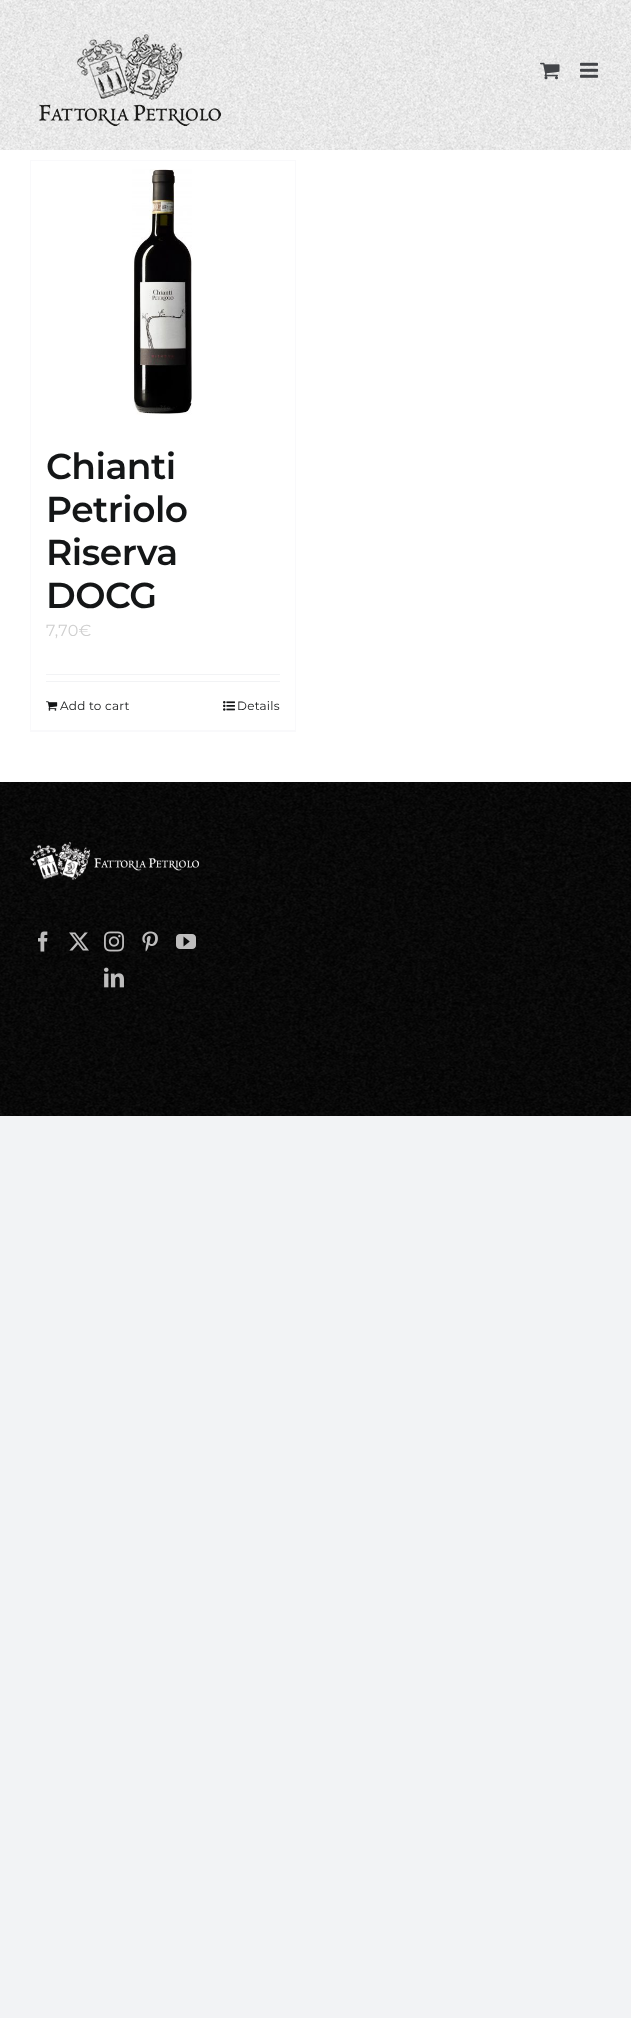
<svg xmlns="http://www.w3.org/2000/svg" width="631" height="2018">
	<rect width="100%" height="100%" fill="#F2F3F5" />
	<rect x="0" y="150" width="631" height="632" fill="#FFFFFF" />
	<image x="0" y="0" width="631" height="150" href="assets/img1.png" />
	<image x="39" y="34" width="182" height="92" href="assets/img2.png" />
	<image x="540" y="62" width="20" height="18" href="assets/img3.png" />
	<image x="580" y="62" width="18" height="16" href="assets/img4.png" />
	<rect x="30" y="160" width="266" height="1" fill="#F9F9FB" />
	<rect x="295" y="160" width="1" height="572" fill="#F9F9FB" />
	<rect x="30" y="730" width="266" height="2" fill="#F9F9FB" />
	<rect x="30" y="160" width="1" height="572" fill="#F9F9FB" />
	<image x="132" y="169" width="60" height="246" href="assets/img5.png" />
	<g font-family="Montserrat" font-size="36" font-weight="600" letter-spacing="-0.5" fill="#141617">
		<text x="46" y="479">Chianti</text>
		<text x="46" y="522">Petriolo</text>
		<text x="46" y="565">Riserva</text>
		<text x="46" y="608">DOCG</text>
	</g>
	<text x="46" y="636" font-family="Montserrat" font-size="16" letter-spacing="0.25" fill="#CFCFCF">7,70€</text>
	<rect x="46" y="674" width="234" height="1" fill="#F2F3F5" />
	<rect x="46" y="681" width="234" height="1" fill="#F2F3F5" />
	<image x="46" y="701" width="12" height="10" href="assets/img6.png" />
	<text x="60" y="710" font-family="Montserrat" font-size="12" letter-spacing="0.25" fill="#141617">Add to cart</text>
	<image x="223" y="701" width="12" height="10" href="assets/img7.png" />
	<text x="237" y="710" font-family="Montserrat" font-size="12" letter-spacing="0.25" fill="#141617">Details</text>
	<image x="0" y="782" width="631" height="334" href="assets/img8.png" />
	<image x="30" y="841" width="169" height="39" href="assets/img9.png" />
	<image x="38" y="931" width="10" height="21" href="assets/img10.png" />
	<image x="69" y="932" width="20" height="19" href="assets/img11.png" />
	<image x="104" y="931" width="20" height="21" href="assets/img12.png" />
	<image x="142" y="931" width="16" height="21" href="assets/img13.png" />
	<image x="176" y="934" width="20" height="15" href="assets/img14.png" />
	<image x="104" y="967" width="20" height="21" href="assets/img15.png" />
</svg>
